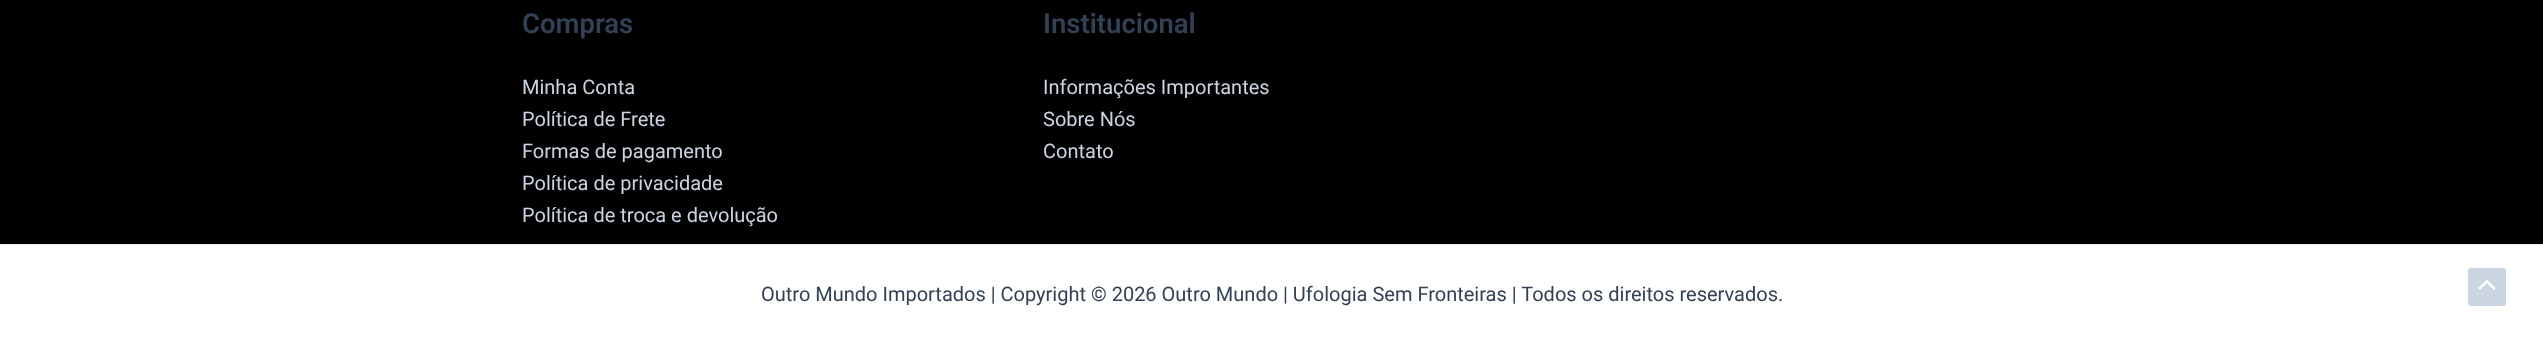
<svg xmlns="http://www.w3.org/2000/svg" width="2543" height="343">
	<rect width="100%" height="100%" fill="#FFFFFF" />
	<rect x="0" y="0" width="2543" height="244" fill="#000000" />
	<text x="522" y="33" font-family="Roboto" font-size="27.5" font-weight="600" fill="#334155">Compras</text>
	<g font-family="Roboto" font-size="20" fill="#CBD5E1">
		<text x="522" y="94">Minha Conta</text>
		<text x="522" y="126">Política de Frete</text>
		<text x="522" y="158">Formas de pagamento</text>
		<text x="522" y="190">Política de privacidade</text>
		<text x="522" y="222">Política de troca e devolução</text>
	</g>
	<text x="1043" y="33" font-family="Roboto" font-size="27.5" font-weight="600" fill="#334155">Institucional</text>
	<g font-family="Roboto" font-size="20" fill="#CBD5E1">
		<text x="1043" y="94">Informações Importantes</text>
		<text x="1043" y="126">Sobre Nós</text>
		<text x="1043" y="158">Contato</text>
	</g>
	<rect x="0" y="244" width="2543" height="1" fill="#E2E8F0" />
	<text x="761" y="301" font-family="Roboto" font-size="20" fill="#334155">Outro Mundo Importados | Copyright © 2026 Outro Mundo | Ufologia Sem Fronteiras | Todos os direitos reservados.</text>
	<rect x="2468" y="268" width="38" height="38" rx="2.5" fill="#CBD5E1" />
	<path d="M2495.5 288L2487 279.5L2478 288L2480 290L2487 283L2494 290Z" fill="#FFFFFF" />
</svg>
